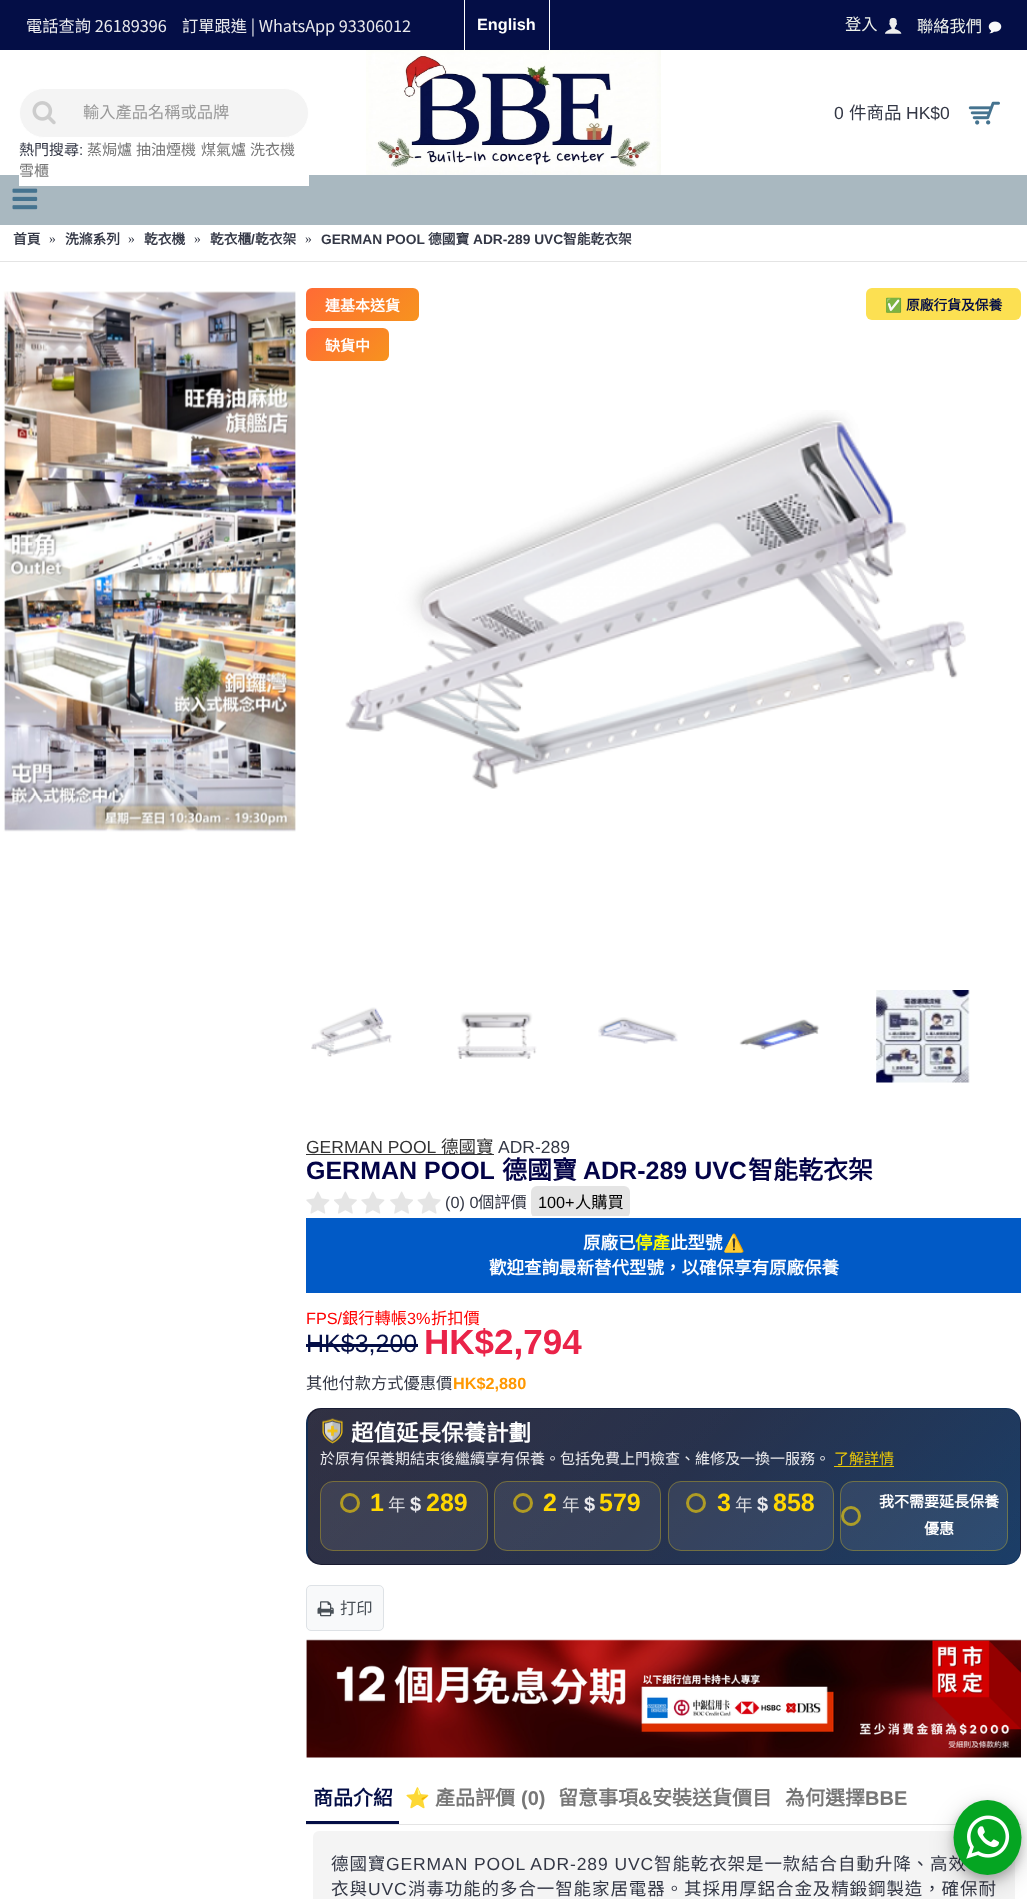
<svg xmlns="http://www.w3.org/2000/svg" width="1027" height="1899">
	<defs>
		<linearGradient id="g1" gradientUnits="userSpaceOnUse" x1="326" y1="268" x2="399" y2="341"><stop offset="0" stop-color="#FF6B35" /><stop offset="1" stop-color="#F7931E" /></linearGradient>
		<linearGradient id="g2" gradientUnits="userSpaceOnUse" x1="318" y1="315" x2="377" y2="373"><stop offset="0" stop-color="#FF6B35" /><stop offset="1" stop-color="#F7931E" /></linearGradient>
		<clipPath id="clip1"><rect x="306" y="1183" width="715" height="33" /></clipPath>
		<clipPath id="clip2"><rect x="306" y="1408" width="715" height="157" rx="15" /></clipPath>
		<linearGradient id="g3" gradientUnits="userSpaceOnUse" x1="447" y1="1114" x2="881" y2="1548"><stop offset="0" stop-color="#1A1A2E" /><stop offset="0.5" stop-color="#16213E" /><stop offset="1" stop-color="#0F3460" /></linearGradient>
		<linearGradient id="g4" gradientUnits="userSpaceOnUse" x1="-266" y1="1269" x2="168" y2="1703"><stop offset="0" stop-color="#1A1A2E" /><stop offset="0.5" stop-color="#16213E" /><stop offset="1" stop-color="#0F3460" /></linearGradient>
		<linearGradient id="g5" gradientUnits="userSpaceOnUse" x1="447" y1="1269" x2="881" y2="1703"><stop offset="0" stop-color="#1A1A2E" /><stop offset="0.5" stop-color="#16213E" /><stop offset="1" stop-color="#0F3460" /></linearGradient>
		<linearGradient id="g6" gradientUnits="userSpaceOnUse" x1="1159" y1="1269" x2="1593" y2="1703"><stop offset="0" stop-color="#1A1A2E" /><stop offset="0.5" stop-color="#16213E" /><stop offset="1" stop-color="#0F3460" /></linearGradient>
		<linearGradient id="g7" gradientUnits="userSpaceOnUse" x1="447" y1="1424" x2="881" y2="1858"><stop offset="0" stop-color="#1A1A2E" /><stop offset="0.5" stop-color="#16213E" /><stop offset="1" stop-color="#0F3460" /></linearGradient>
		<linearGradient id="g8" gradientUnits="userSpaceOnUse" x1="447" y1="1269" x2="881" y2="1703"><stop offset="0" stop-color="#FFFFFF" stop-opacity="0.1" /><stop offset="1" stop-color="#FFFFFF" stop-opacity="0.05" /></linearGradient>
	</defs>
	<rect width="100%" height="100%" fill="#FFFFFF" />
	<rect x="0" y="0" width="1027" height="50" fill="#040E46" />
	<g font-family="Noto Sans TC" font-size="16.25" fill="#EAEAED">
		<text x="26" y="32">電話查詢 26189396</text>
		<text x="182" y="32">訂單跟進 | WhatsApp 93306012</text>
	</g>
	<rect x="549" y="0" width="1" height="50" fill="#FFFFFF" />
	<rect x="464" y="0" width="1" height="50" fill="#FFFFFF" />
	<text x="477" y="30" font-family="Liberation Sans" font-size="16.25" font-weight="700" fill="#FFFFFF">English</text>
	<text x="845" y="30" font-family="Noto Sans TC" font-size="16.25" fill="#EEF1EA">登入</text>
	<image x="885" y="17" width="17" height="17" href="assets/img1.png" />
	<text x="917" y="32" font-family="Noto Sans TC" font-size="16.25" fill="#EEF1EA">聯絡我們</text>
	<image x="988" y="21" width="14" height="13" href="assets/img2.png" />
	<rect x="19.5" y="88.5" width="289" height="49" rx="24.5" fill="#F4F4F4" stroke="#FFFFFF" />
	<image x="32" y="101" width="24" height="24" href="assets/img3.png" />
	<text x="83" y="118" font-family="Noto Sans CJK TC" font-size="16.25" fill="#999999">輸入產品名稱或品牌</text>
	<rect x="0" y="175" width="1027" height="50" fill="#A9B8C0" />
	<rect x="19" y="175" width="290" height="11" fill="#FFFFFF" />
	<text x="19" y="155" font-family="Noto Sans CJK TC" font-size="15" fill="#333745">熱門搜尋</text>
	<text x="79" y="155" font-family="Liberation Sans" font-size="15" fill="#333745">:</text>
	<g font-family="Noto Sans CJK TC" font-size="15" fill="#777777">
		<text x="87" y="155">蒸焗爐</text>
		<text x="136" y="155">抽油煙機</text>
		<text x="201" y="155">煤氣爐</text>
		<text x="250" y="155">洗衣機</text>
		<text x="19" y="176">雪櫃</text>
	</g>
	<image x="366" y="50" width="295" height="125" href="assets/img4.png" />
	<text x="834" y="119" font-family="Liberation Sans" font-size="17.5" fill="#333745">0</text>
	<text x="849" y="119" font-family="Noto Sans CJK TC" font-size="17.5" fill="#333745">件商品</text>
	<text x="906" y="119" font-family="Liberation Sans" font-size="17.5" fill="#333745">HK$0</text>
	<image x="968" y="101" width="32" height="24" href="assets/img5.png" />
	<image x="12" y="188" width="26" height="22" href="assets/img6.png" />
	<rect x="0" y="261" width="1027" height="1" fill="#E4E4E4" />
	<text x="13" y="244" font-family="Noto Sans CJK TC" font-size="13.75" font-weight="700" fill="#333745">首頁</text>
	<text x="49" y="243" font-family="Liberation Serif" font-size="13.75" fill="#333745">»</text>
	<text x="65" y="244" font-family="Noto Sans CJK TC" font-size="13.75" font-weight="700" fill="#333745">洗滌系列</text>
	<text x="128" y="243" font-family="Liberation Serif" font-size="13.75" fill="#333745">»</text>
	<text x="144" y="244" font-family="Noto Sans CJK TC" font-size="13.75" font-weight="700" fill="#333745">乾衣機</text>
	<text x="194" y="243" font-family="Liberation Serif" font-size="13.75" fill="#333745">»</text>
	<text x="210" y="244" font-family="Noto Sans CJK TC" font-size="13.75" font-weight="700" fill="#333745">乾衣櫃</text>
	<text x="251" y="244" font-family="Liberation Sans" font-size="13.75" font-weight="700" fill="#333745">/</text>
	<text x="255" y="244" font-family="Noto Sans CJK TC" font-size="13.75" font-weight="700" fill="#333745">乾衣架</text>
	<text x="305" y="243" font-family="Liberation Serif" font-size="13.75" fill="#333745">»</text>
	<text x="321" y="244" font-family="Liberation Sans" font-size="13.75" font-weight="700" fill="#333745">GERMAN POOL</text>
	<text x="428" y="244" font-family="Noto Sans CJK TC" font-size="13.75" font-weight="700" fill="#333745">德國寶</text>
	<text x="473" y="244" font-family="Liberation Sans" font-size="13.75" font-weight="700" fill="#333745">ADR-289 UVC</text>
	<text x="563" y="244" font-family="Noto Sans CJK TC" font-size="13.75" font-weight="700" fill="#333745">智能乾衣架</text>
	<image x="3" y="291" width="294" height="541" href="assets/img7.png" />
	<rect x="306" y="288" width="113" height="33" rx="6" fill="url(#g1)" />
	<text x="325" y="311" font-family="Noto Sans CJK TC" font-size="15" font-weight="700" fill="#FFFFFF">連基本送貨</text>
	<rect x="306" y="328" width="83" height="33" rx="6" fill="url(#g2)" />
	<text x="325" y="351" font-family="Noto Sans CJK TC" font-size="15" font-weight="700" fill="#FFFFFF">缺貨中</text>
	<rect x="866" y="288" width="155" height="32" rx="6" fill="#FCE052" />
	<text x="885" y="310" font-family="Noto Color Emoji" font-size="13.75" font-weight="700" fill="#040E46">✅</text>
	<text x="906" y="310" font-family="Noto Sans CJK TC" font-size="13.75" font-weight="700" fill="#040E46">原廠行貨及保養</text>
	<image x="345" y="410" width="621" height="379" href="assets/img8.png" />
	<image x="311" y="1007" width="81" height="50" href="assets/img9.png" />
	<image x="457" y="1012" width="80" height="47" href="assets/img10.png" />
	<image x="598" y="1017" width="80" height="27" href="assets/img11.png" />
	<image x="739" y="1019" width="81" height="31" href="assets/img12.png" />
	<image x="876" y="990" width="94" height="93" href="assets/img13.png" />
	<text x="306" y="1153" font-family="Liberation Sans" font-size="17.5" fill="#333333">GERMAN POOL</text>
	<rect x="306" y="1154" width="188" height="1" fill="#333333" />
	<text x="441" y="1153" font-family="Noto Sans CJK TC" font-size="17.5" fill="#333333">德國寶</text>
	<text x="498" y="1153" font-family="Liberation Sans" font-size="17.5" fill="#333745">ADR-289</text>
	<text x="306" y="1179" font-family="Liberation Sans" font-size="25" font-weight="700" fill="#030347">GERMAN POOL</text>
	<text x="502" y="1179" font-family="Noto Sans CJK TC" font-size="25" font-weight="700" fill="#030347">德國寶</text>
	<text x="583" y="1179" font-family="Liberation Sans" font-size="25" font-weight="700" fill="#030347">ADR-289 UVC</text>
	<text x="748" y="1179" font-family="Noto Sans CJK TC" font-size="25" font-weight="700" fill="#030347">智能乾衣架</text>
	<image x="306" y="1191" width="24" height="23" href="assets/img14.png" />
	<image x="334" y="1191" width="23" height="23" href="assets/img15.png" />
	<image x="361" y="1191" width="24" height="23" href="assets/img14.png" />
	<image x="390" y="1191" width="23" height="23" href="assets/img16.png" />
	<image x="417" y="1191" width="24" height="23" href="assets/img17.png" />
	<text x="445" y="1208" font-family="Liberation Sans" font-size="16.25" fill="#333745">(0) 0</text>
	<text x="478" y="1208" font-family="Noto Sans CJK TC" font-size="16.25" fill="#333745">個評價</text>
	<g clip-path="url(#clip1)">
		<rect x="531" y="1186" width="99" height="32" rx="6" fill="#E4E4E4" />
	</g>
	<text x="538" y="1208" font-family="Liberation Sans" font-size="16.25" fill="#000000">100+</text>
	<text x="575" y="1208" font-family="Noto Sans CJK TC" font-size="16.25" fill="#000000">人購買</text>
	<rect x="306" y="1218" width="715" height="75" fill="#015AC6" />
	<text x="583" y="1249" font-family="Noto Sans CJK TC" font-size="17.5" font-weight="700" fill="#FFFFFF">原廠已</text>
	<text x="635" y="1249" font-family="Noto Sans CJK TC" font-size="17.5" font-weight="700" fill="#FFFF00">停產</text>
	<text x="670" y="1249" font-family="Noto Sans CJK TC" font-size="17.5" font-weight="700" fill="#FFFFFF">此型號</text>
	<text x="723" y="1249" font-family="Noto Color Emoji" font-size="17.5" font-weight="700" fill="#FFFFFF">⚠️</text>
	<text x="489" y="1274" font-family="Noto Sans CJK TC" font-size="17.5" font-weight="700" fill="#FFFFFF">歡迎查詢最新替代型號，以確保享有原廠保養</text>
	<text x="306" y="1324" font-family="Liberation Sans" font-size="16.25" fill="#FF0000">FPS/</text>
	<text x="342" y="1324" font-family="Noto Sans CJK TC" font-size="16.25" fill="#FF0000">銀行轉帳</text>
	<text x="407" y="1324" font-family="Liberation Sans" font-size="16.25" fill="#FF0000">3%</text>
	<text x="431" y="1324" font-family="Noto Sans CJK TC" font-size="16.25" fill="#FF0000">折扣價</text>
	<text x="306" y="1352" font-family="Liberation Sans" font-size="25" fill="#040E46">HK$3,200</text>
	<rect x="306" y="1344" width="112" height="3" fill="#040E46" />
	<text x="424" y="1354" font-family="Liberation Sans" font-size="35" font-weight="700" fill="#EA2349">HK$2,794</text>
	<text x="306" y="1389" font-family="Noto Sans CJK TC" font-size="16.25" fill="#333745">其他付款方式優惠價</text>
	<text x="453" y="1389" font-family="Liberation Sans" font-size="16.25" font-weight="700" fill="#FF9800">HK$2,880</text>
	<g clip-path="url(#clip2)">
		<rect x="308" y="1408" width="703" height="1" fill="url(#g3)" />
		<rect x="306" y="1409" width="2" height="155" fill="url(#g4)" />
		<rect x="308" y="1409" width="712" height="155" fill="url(#g5)" />
		<rect x="1020" y="1418" width="1" height="137" fill="url(#g6)" />
		<rect x="308" y="1564" width="703" height="1" fill="url(#g7)" />
	</g>
	<rect x="308" y="1409" width="712" height="155" rx="14" fill="url(#g8)" />
	<image x="322" y="1418" width="21" height="26" href="assets/img18.png" />
	<text x="351" y="1441" font-family="Noto Sans CJK TC" font-size="22.5" font-weight="700" fill="#FFFFFF">超值延長保養計劃</text>
	<text x="320" y="1464" font-family="Noto Sans CJK TC" font-size="15" fill="#EAEAED">於原有保養期結束後繼續享有保養。包括免費上門檢查、維修及一換一服務。</text>
	<text x="834" y="1464" font-family="Noto Sans CJK TC" font-size="15" fill="#E9C709">了解詳情</text>
	<rect x="834" y="1466" width="60" height="1" fill="#FFD700" fill-opacity="0.9" />
	<rect x="320" y="1481" width="168" height="70" rx="13" fill="#FFFFFF" fill-opacity="0.08" />
	<rect x="320.5" y="1481.5" width="167" height="69" rx="12.5" fill="none" stroke="#FFD700" stroke-opacity="0.3" />
	<circle cx="350" cy="1503" r="8.5" fill="none" stroke="#B29B22" stroke-width="3" />
	<text x="370" y="1511" font-family="Liberation Sans" font-size="25" font-weight="700" fill="#FFD700">1</text>
	<text x="388" y="1511" font-family="Noto Sans CJK TC" font-size="17.5" fill="#D8D9DD">年</text>
	<text x="410" y="1511" font-family="Liberation Sans" font-size="20" font-weight="700" fill="#EAEAED">$</text>
	<text x="426" y="1511" font-family="Liberation Sans" font-size="25" font-weight="700" fill="#FFD700">289</text>
	<rect x="494" y="1481" width="167" height="70" rx="13" fill="#FFFFFF" fill-opacity="0.08" />
	<rect x="494.5" y="1481.5" width="166" height="69" rx="12.5" fill="none" stroke="#FFD700" stroke-opacity="0.3" />
	<circle cx="523" cy="1503" r="8.5" fill="none" stroke="#B19B23" stroke-width="3" />
	<text x="543" y="1511" font-family="Liberation Sans" font-size="25" font-weight="700" fill="#FFD700">2</text>
	<text x="562" y="1511" font-family="Noto Sans CJK TC" font-size="17.5" fill="#D8D9DD">年</text>
	<text x="584" y="1511" font-family="Liberation Sans" font-size="20" font-weight="700" fill="#EAEAED">$</text>
	<text x="599" y="1511" font-family="Liberation Sans" font-size="25" font-weight="700" fill="#FFD700">579</text>
	<rect x="668" y="1481" width="166" height="70" rx="13" fill="#FFFFFF" fill-opacity="0.08" />
	<rect x="668.5" y="1481.5" width="165" height="69" rx="12.5" fill="none" stroke="#FFD700" stroke-opacity="0.3" />
	<circle cx="696" cy="1503" r="8.5" fill="none" stroke="#AF9C25" stroke-width="3" />
	<text x="717" y="1511" font-family="Liberation Sans" font-size="25" font-weight="700" fill="#FFD700">3</text>
	<text x="735" y="1511" font-family="Noto Sans CJK TC" font-size="17.5" fill="#D8D9DD">年</text>
	<text x="757" y="1511" font-family="Liberation Sans" font-size="20" font-weight="700" fill="#EAEAED">$</text>
	<text x="773" y="1511" font-family="Liberation Sans" font-size="25" font-weight="700" fill="#FFD700">858</text>
	<rect x="840" y="1481" width="168" height="70" rx="13" fill="#FFFFFF" fill-opacity="0.08" />
	<rect x="840.5" y="1481.5" width="167" height="69" rx="12.5" fill="none" stroke="#FFD700" stroke-opacity="0.3" />
	<circle cx="851" cy="1516" r="8.5" fill="none" stroke="#AD9E29" stroke-width="3" />
	<g font-family="Noto Sans CJK TC" font-size="15" font-weight="700" fill="#FFFFFF">
		<text x="879" y="1507">我不需要延長保養</text>
		<text x="924" y="1534">優惠</text>
	</g>
	<rect x="306.5" y="1585.5" width="77" height="45" rx="4.5" fill="#F8F9FA" stroke="#DEE2E6" />
	<image x="317" y="1601" width="17" height="16" href="assets/img19.png" />
	<text x="340" y="1614" font-family="Noto Sans CJK TC" font-size="16.25" fill="#495057">打印</text>
	<image x="306" y="1639" width="715" height="119" href="assets/img20.png" />
	<rect x="306" y="1824" width="715" height="1" fill="#E4E4E4" />
	<rect x="306" y="1821" width="93" height="3" fill="#040E46" />
	<text x="313" y="1805" font-family="Noto Sans CJK TC" font-size="20" font-weight="700" fill="#040E46">商品介紹</text>
	<text x="405" y="1805" font-family="Noto Color Emoji" font-size="20" font-weight="700" fill="#777777">⭐</text>
	<text x="435" y="1805" font-family="Noto Sans CJK TC" font-size="20" font-weight="700" fill="#777777">產品評價</text>
	<text x="521" y="1805" font-family="Liberation Sans" font-size="20" font-weight="700" fill="#777777">(0)</text>
	<text x="558" y="1805" font-family="Noto Sans CJK TC" font-size="20" font-weight="700" fill="#777777">留意事項</text>
	<text x="638" y="1805" font-family="Liberation Sans" font-size="20" font-weight="700" fill="#777777">&amp;</text>
	<g font-family="Noto Sans CJK TC" font-size="20" font-weight="700" fill="#777777">
		<text x="652" y="1805">安裝送貨價目</text>
		<text x="785" y="1805">為何選擇</text>
	</g>
	<text x="865" y="1805" font-family="Liberation Sans" font-size="20" font-weight="700" fill="#777777">BBE</text>
	<rect x="313" y="1831" width="702" height="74" rx="6" fill="#F4F4F4" />
	<text x="331" y="1870" font-family="Noto Sans CJK TC" font-size="17.5" letter-spacing="0.9" fill="#333745">德國寶</text>
	<text x="386" y="1870" font-family="Liberation Sans" font-size="17.5" letter-spacing="0.9" fill="#333745">GERMAN POOL ADR-289 UVC</text>
	<g font-family="Noto Sans CJK TC" font-size="17.5" letter-spacing="0.9" fill="#333745">
		<text x="654" y="1870">智能乾衣架是一款結合自動升降、高效</text>
		<text x="331" y="1895">衣與</text>
	</g>
	<text x="368" y="1895" font-family="Liberation Sans" font-size="17.5" letter-spacing="0.9" fill="#333745">UVC</text>
	<text x="408" y="1895" font-family="Noto Sans CJK TC" font-size="17.5" letter-spacing="0.9" fill="#333745">消毒功能的多合一智能家居電器。其採用厚鋁合金及精鍛鋼製造，確保耐</text>
	<rect x="954" y="1808" width="67" height="75" rx="33.5" fill="#000000" fill-opacity="0.19" filter="blur(12.5px)" />
	<rect x="954" y="1805" width="67" height="75" rx="33.5" fill="#000000" fill-opacity="0.2" filter="blur(5px)" />
	<ellipse cx="987.5" cy="1837.5" rx="34" ry="37.5" fill="#05A522" />
	<image x="966" y="1815" width="44" height="44" href="assets/img21.png" />
</svg>
